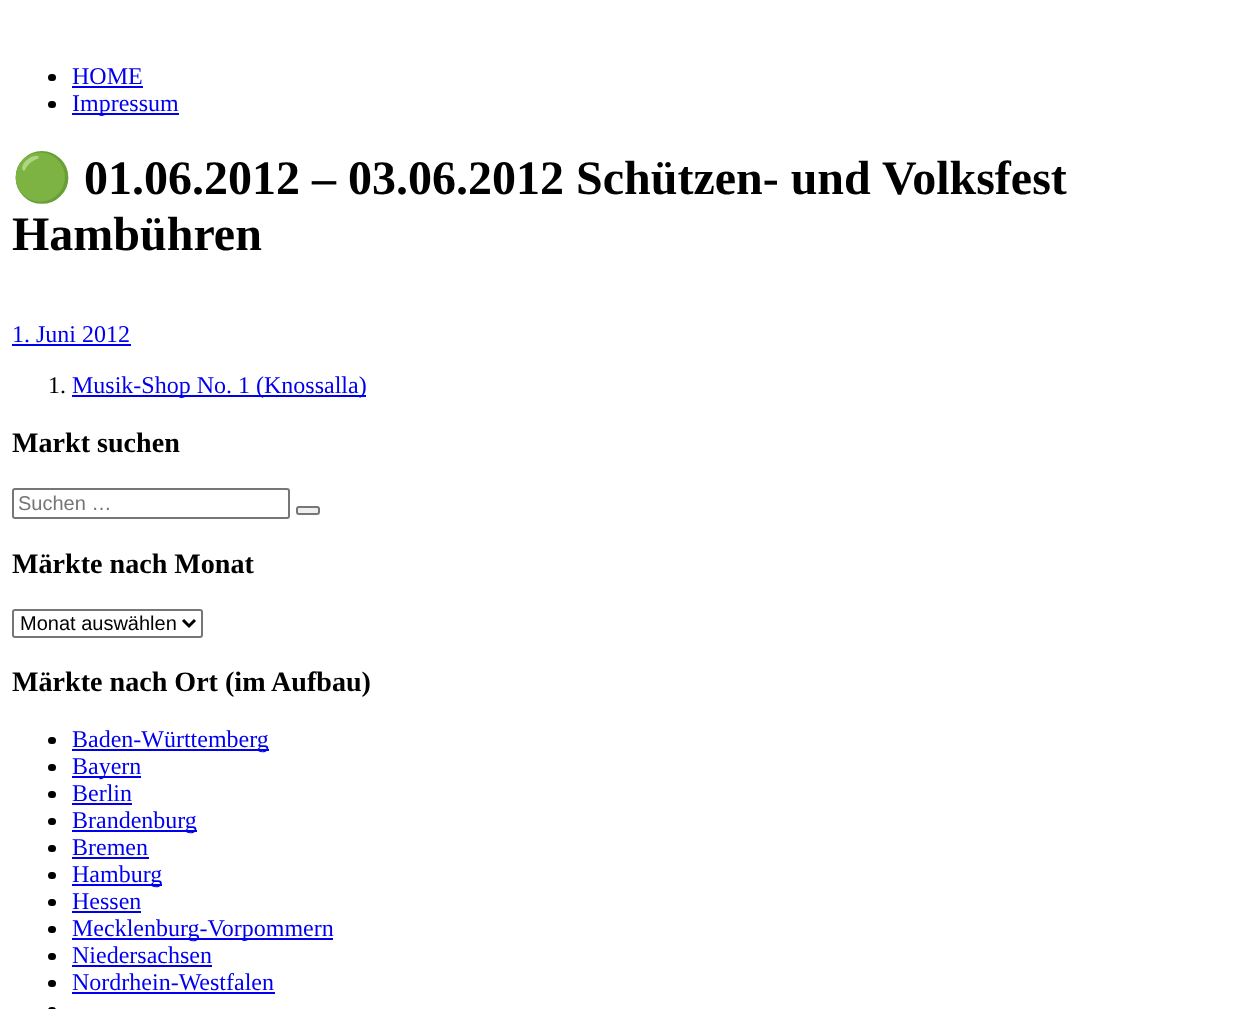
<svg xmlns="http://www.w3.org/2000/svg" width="1254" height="1009">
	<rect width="100%" height="100%" fill="#FFFFFF" />
	<rect x="48" y="74" width="8" height="7" rx="3.5" fill="#000000" />
	<text x="72" y="84" font-family="Liberation Serif" font-size="24" fill="#0000EE">HOME</text>
	<rect x="72" y="86" width="71" height="2" fill="#0000EE" />
	<rect x="48" y="101" width="8" height="7" rx="3.5" fill="#000000" />
	<rect x="72" y="113" width="107" height="2" fill="#0000EE" />
	<text x="72" y="111" font-family="Liberation Serif" font-size="24" fill="#0000EE">Impressum</text>
	<text x="12" y="194" font-family="Noto Color Emoji" font-size="48" font-weight="700" fill="#000000">🟢</text>
	<g font-family="Liberation Serif" font-size="48" font-weight="700" fill="#000000">
		<text x="84" y="194">01.06.2012 – 03.06.2012 Schützen- und Volksfest</text>
		<text x="12" y="250">Hambühren</text>
	</g>
	<text x="12" y="342" font-family="Liberation Serif" font-size="24" fill="#0000EE">1. Juni 2012</text>
	<rect x="12" y="344" width="119" height="2" fill="#0000EE" />
	<text x="48" y="393" font-family="Liberation Serif" font-size="24" fill="#000000">1.</text>
	<rect x="72" y="395" width="294" height="2" fill="#0000EE" />
	<text x="72" y="393" font-family="Liberation Serif" font-size="24" fill="#0000EE">Musik-Shop No. 1 (Knossalla)</text>
	<text x="12" y="452" font-family="Liberation Serif" font-size="28.1" font-weight="700" fill="#000000">Markt suchen</text>
	<rect x="13" y="489" width="276" height="29" rx="2" fill="none" stroke="#767676" stroke-width="2" />
	<text x="18" y="510" font-family="Liberation Sans" font-size="20" fill="#757575">Suchen …</text>
	<rect x="297" y="507" width="22" height="7" rx="2" fill="#EFEFEF" stroke="#767676" stroke-width="2" />
	<text x="12" y="573" font-family="Liberation Serif" font-size="28.1" font-weight="700" fill="#000000">Märkte nach Monat</text>
	<rect x="13" y="610" width="189" height="27" rx="2" fill="none" stroke="#767676" stroke-width="2" />
	<path d="M183 620L189 626L195 620" fill="none" stroke="#000000" stroke-width="3" />
	<text x="20" y="630" font-family="Liberation Sans" font-size="20" fill="#000000">Monat auswählen</text>
	<text x="12" y="691" font-family="Liberation Serif" font-size="28.1" font-weight="700" fill="#000000">Märkte nach Ort (im Aufbau)</text>
	<rect x="48" y="737" width="8" height="7" rx="3.5" fill="#000000" />
	<rect x="72" y="749" width="197" height="2" fill="#0000EE" />
	<text x="72" y="747" font-family="Liberation Serif" font-size="24" fill="#0000EE">Baden-Württemberg</text>
	<rect x="48" y="764" width="8" height="7" rx="3.5" fill="#000000" />
	<rect x="72" y="776" width="69" height="2" fill="#0000EE" />
	<text x="72" y="774" font-family="Liberation Serif" font-size="24" fill="#0000EE">Bayern</text>
	<rect x="48" y="791" width="8" height="7" rx="3.5" fill="#000000" />
	<text x="72" y="801" font-family="Liberation Serif" font-size="24" fill="#0000EE">Berlin</text>
	<rect x="72" y="803" width="60" height="2" fill="#0000EE" />
	<rect x="48" y="818" width="8" height="7" rx="3.5" fill="#000000" />
	<rect x="72" y="830" width="125" height="2" fill="#0000EE" />
	<text x="72" y="828" font-family="Liberation Serif" font-size="24" fill="#0000EE">Brandenburg</text>
	<rect x="48" y="845" width="8" height="7" rx="3.5" fill="#000000" />
	<text x="72" y="855" font-family="Liberation Serif" font-size="24" fill="#0000EE">Bremen</text>
	<rect x="72" y="857" width="77" height="2" fill="#0000EE" />
	<rect x="48" y="872" width="8" height="7" rx="3.5" fill="#000000" />
	<rect x="72" y="884" width="90" height="2" fill="#0000EE" />
	<text x="72" y="882" font-family="Liberation Serif" font-size="24" fill="#0000EE">Hamburg</text>
	<rect x="48" y="899" width="8" height="7" rx="3.5" fill="#000000" />
	<text x="72" y="909" font-family="Liberation Serif" font-size="24" fill="#0000EE">Hessen</text>
	<rect x="72" y="911" width="69" height="2" fill="#0000EE" />
	<rect x="48" y="926" width="8" height="7" rx="3.5" fill="#000000" />
	<rect x="72" y="938" width="261" height="2" fill="#0000EE" />
	<text x="72" y="936" font-family="Liberation Serif" font-size="24" fill="#0000EE">Mecklenburg-Vorpommern</text>
	<rect x="48" y="953" width="8" height="7" rx="3.5" fill="#000000" />
	<text x="72" y="963" font-family="Liberation Serif" font-size="24" fill="#0000EE">Niedersachsen</text>
	<rect x="72" y="965" width="140" height="2" fill="#0000EE" />
	<rect x="48" y="980" width="8" height="7" rx="3.5" fill="#000000" />
	<text x="72" y="990" font-family="Liberation Serif" font-size="24" fill="#0000EE">Nordrhein-Westfalen</text>
	<rect x="72" y="992" width="203" height="2" fill="#0000EE" />
	<rect x="48" y="1007" width="8" height="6" rx="3.5" fill="#000000" />
</svg>
